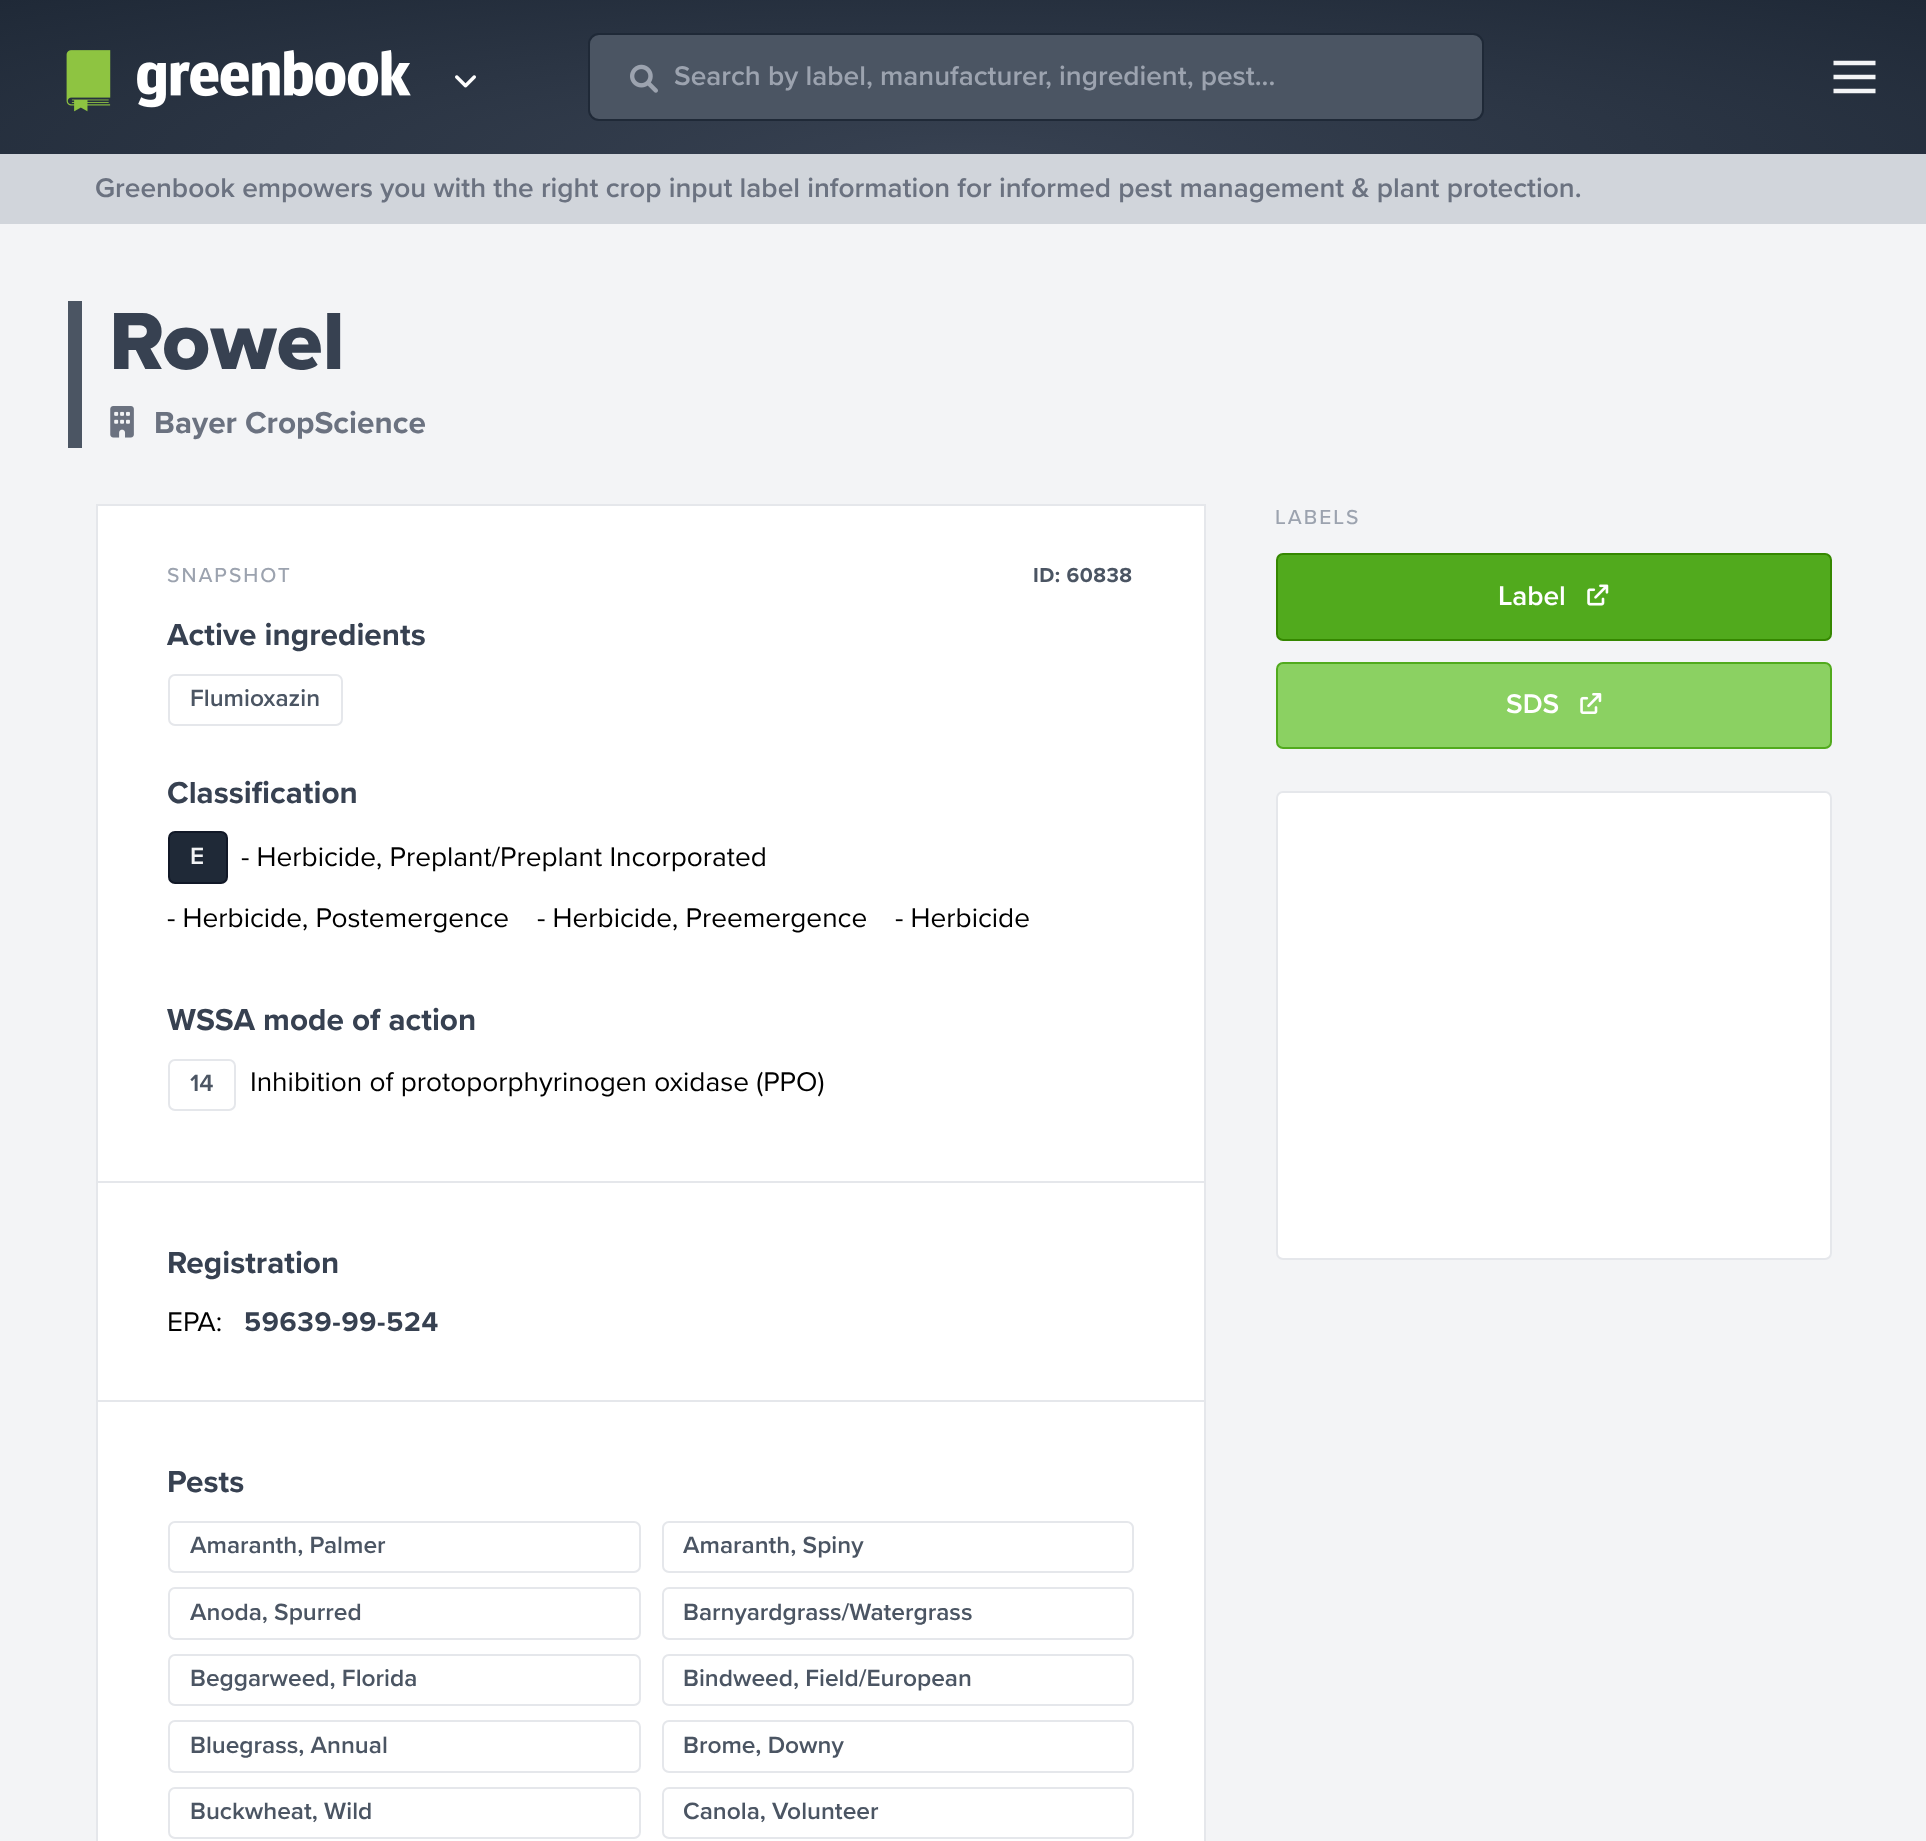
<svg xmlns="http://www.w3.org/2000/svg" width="1926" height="1841">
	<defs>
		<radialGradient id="g1" gradientUnits="userSpaceOnUse" cx="0" cy="0" r="1" gradientTransform="matrix(1362 0 0 218 963 154)"><stop offset="0" stop-color="#374151" /><stop offset="1" stop-color="#1F2937" /></radialGradient>
	</defs>
	<rect width="100%" height="100%" fill="#D1D5DB" />
	<rect x="0" y="0" width="1926" height="154" fill="url(#g1)" />
	<image x="66" y="50" width="345" height="62" href="assets/img1.png" />
	<image x="455" y="75" width="21" height="13" href="assets/img2.png" />
	<rect x="589" y="34" width="894" height="86" rx="10" fill="#4B5563" stroke="#1F2937" stroke-width="2" />
	<image x="630" y="64" width="28" height="29" href="assets/img3.png" />
	<text x="674" y="85" font-family="Proxima Nova" font-size="28" font-weight="600" fill="#9CA3AF">Search by label, manufacturer, ingredient, pest...</text>
	<path d="M1833.5 63H1875.5M1833.5 77H1875.5M1833.5 91H1875.5" fill="none" stroke="#F3F4F6" stroke-width="4.7" />
	<text x="95" y="197" font-family="Proxima Nova" font-size="28" font-weight="600" fill="#6B7280">Greenbook empowers you with the right crop input label information for informed pest management &amp; plant protection.</text>
	<rect x="0" y="224" width="1926" height="1617" fill="#F3F4F6" />
	<rect x="68" y="301" width="14" height="147" fill="#4B5563" />
	<text x="109" y="369" font-family="Proxima Nova" font-size="84" font-weight="800" fill="#374151">Rowel</text>
	<image x="110" y="406" width="24" height="32" href="assets/img4.png" />
	<text x="154" y="433" font-family="Proxima Nova" font-size="31.5" font-weight="700" fill="#6B7280">Bayer CropScience</text>
	<rect x="97" y="505" width="1108" height="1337" fill="#FFFFFF" stroke="#E5E7EB" stroke-width="2" />
	<text x="167" y="582" font-family="Proxima Nova" font-size="21" font-weight="500" letter-spacing="2" fill="#9CA3AF">SNAPSHOT</text>
	<text x="1033" y="582" font-family="Proxima Nova" font-size="21" font-weight="700" letter-spacing="0.5" fill="#4B5563">ID: 60838</text>
	<text x="167" y="645" font-family="Proxima Nova" font-size="31.5" font-weight="700" fill="#374151">Active ingredients</text>
	<rect x="169" y="675" width="173" height="50" rx="6" fill="none" stroke="#E5E7EB" stroke-width="2" />
	<text x="190" y="706" font-family="Proxima Nova" font-size="24.5" font-weight="600" fill="#4B5563">Flumioxazin</text>
	<text x="167" y="803" font-family="Proxima Nova" font-size="31.5" font-weight="700" fill="#374151">Classification</text>
	<rect x="169" y="832" width="58" height="51" rx="6" fill="#1F2937" stroke="#111827" stroke-width="2" />
	<text x="190" y="864" font-family="Proxima Nova" font-size="24.5" font-weight="600" fill="#F3F4F6">E</text>
	<g font-family="Proxima Nova" font-size="28" fill="#000000">
		<text x="241" y="866">- Herbicide, Preplant/Preplant Incorporated</text>
		<text x="167" y="927">- Herbicide, Postemergence</text>
		<text x="537" y="927">- Herbicide, Preemergence</text>
		<text x="895" y="927">- Herbicide</text>
	</g>
	<text x="167" y="1030" font-family="Proxima Nova" font-size="31.5" font-weight="700" fill="#374151">WSSA mode of action</text>
	<rect x="169" y="1060" width="66" height="50" rx="6" fill="none" stroke="#E5E7EB" stroke-width="2" />
	<text x="190" y="1091" font-family="Proxima Nova" font-size="24.5" font-weight="600" fill="#4B5563">14</text>
	<text x="250" y="1091" font-family="Proxima Nova" font-size="28" fill="#000000">Inhibition of protoporphyrinogen oxidase (PPO)</text>
	<rect x="98" y="1181" width="1106" height="2" fill="#E5E7EB" />
	<text x="167" y="1273" font-family="Proxima Nova" font-size="31.5" font-weight="700" fill="#374151">Registration</text>
	<text x="167" y="1331" font-family="Proxima Nova" font-size="28" fill="#000000">EPA:</text>
	<text x="244" y="1331" font-family="Proxima Nova" font-size="28" font-weight="700" letter-spacing="0.75" fill="#374151">59639-99-524</text>
	<rect x="98" y="1400" width="1106" height="2" fill="#E5E7EB" />
	<text x="167" y="1492" font-family="Proxima Nova" font-size="31.5" font-weight="700" fill="#374151">Pests</text>
	<rect x="169" y="1522" width="471" height="50" rx="6" fill="none" stroke="#E5E7EB" stroke-width="2" />
	<text x="190" y="1553" font-family="Proxima Nova" font-size="24.5" font-weight="600" fill="#4B5563">Amaranth, Palmer</text>
	<rect x="663" y="1522" width="470" height="50" rx="6" fill="none" stroke="#E5E7EB" stroke-width="2" />
	<text x="683" y="1553" font-family="Proxima Nova" font-size="24.5" font-weight="600" fill="#4B5563">Amaranth, Spiny</text>
	<rect x="169" y="1588" width="471" height="51" rx="6" fill="none" stroke="#E5E7EB" stroke-width="2" />
	<text x="190" y="1620" font-family="Proxima Nova" font-size="24.5" font-weight="600" fill="#4B5563">Anoda, Spurred</text>
	<rect x="663" y="1588" width="470" height="51" rx="6" fill="none" stroke="#E5E7EB" stroke-width="2" />
	<text x="683" y="1620" font-family="Proxima Nova" font-size="24.5" font-weight="600" fill="#4B5563">Barnyardgrass/Watergrass</text>
	<rect x="169" y="1655" width="471" height="50" rx="6" fill="none" stroke="#E5E7EB" stroke-width="2" />
	<text x="190" y="1686" font-family="Proxima Nova" font-size="24.5" font-weight="600" fill="#4B5563">Beggarweed, Florida</text>
	<rect x="663" y="1655" width="470" height="50" rx="6" fill="none" stroke="#E5E7EB" stroke-width="2" />
	<text x="683" y="1686" font-family="Proxima Nova" font-size="24.5" font-weight="600" fill="#4B5563">Bindweed, Field/European</text>
	<rect x="169" y="1721" width="471" height="51" rx="6" fill="none" stroke="#E5E7EB" stroke-width="2" />
	<text x="190" y="1753" font-family="Proxima Nova" font-size="24.5" font-weight="600" fill="#4B5563">Bluegrass, Annual</text>
	<rect x="663" y="1721" width="470" height="51" rx="6" fill="none" stroke="#E5E7EB" stroke-width="2" />
	<text x="683" y="1753" font-family="Proxima Nova" font-size="24.5" font-weight="600" fill="#4B5563">Brome, Downy</text>
	<rect x="169" y="1788" width="471" height="50" rx="6" fill="none" stroke="#E5E7EB" stroke-width="2" />
	<text x="190" y="1819" font-family="Proxima Nova" font-size="24.5" font-weight="600" fill="#4B5563">Buckwheat, Wild</text>
	<rect x="663" y="1788" width="470" height="50" rx="6" fill="none" stroke="#E5E7EB" stroke-width="2" />
	<text x="683" y="1819" font-family="Proxima Nova" font-size="24.5" font-weight="600" fill="#4B5563">Canola, Volunteer</text>
	<text x="1275" y="524" font-family="Proxima Nova" font-size="21" font-weight="500" letter-spacing="2" fill="#9CA3AF">LABELS</text>
	<rect x="1277" y="554" width="554" height="86" rx="6" fill="#51AA1D" stroke="#358700" stroke-width="2" />
	<text x="1498" y="605" font-family="Proxima Nova" font-size="28" font-weight="600" fill="#FFFFFF">Label</text>
	<image x="1587" y="584" width="22" height="22" href="assets/img5.png" />
	<rect x="1277" y="663" width="554" height="85" rx="6" fill="#8BD162" stroke="#51AA1D" stroke-width="2" />
	<text x="1506" y="713" font-family="Proxima Nova" font-size="28" font-weight="600" fill="#FFFFFF">SDS</text>
	<image x="1580" y="693" width="22" height="21" href="assets/img6.png" />
	<rect x="1277" y="792" width="554" height="467" rx="6" fill="#FFFFFF" stroke="#E5E7EB" stroke-width="2" />
</svg>
